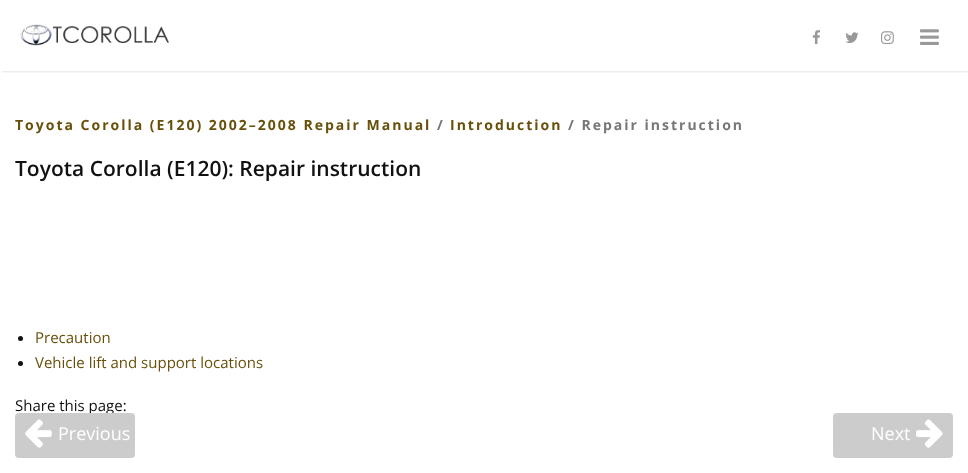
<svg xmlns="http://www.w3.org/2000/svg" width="968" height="473">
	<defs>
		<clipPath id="clip1"><rect x="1" y="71" width="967" height="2" /></clipPath>
	</defs>
	<rect width="100%" height="100%" fill="#FFFFFF" />
	<g clip-path="url(#clip1)">
		<rect x="2" y="0" width="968" height="71" fill="#000000" fill-opacity="0.2" filter="blur(1.5px)" />
	</g>
	<image x="20" y="24" width="149" height="22" href="assets/img1.png" />
	<image x="812" y="30" width="8" height="15" href="assets/img2.png" />
	<image x="845" y="32" width="14" height="11" href="assets/img3.png" />
	<image x="881" y="31" width="13" height="14" href="assets/img4.png" />
	<image x="920" y="29" width="19" height="16" href="assets/img5.png" />
	<text x="15" y="130" font-family="Open Sans" font-size="14" font-weight="700" letter-spacing="2" fill="#68500B">Toyota Corolla (E120) 2002–2008 Repair Manual</text>
	<text x="437" y="130" font-family="Open Sans" font-size="14" font-weight="700" letter-spacing="2" fill="#777777">/</text>
	<text x="450" y="130" font-family="Open Sans" font-size="14" font-weight="700" letter-spacing="2" fill="#68500B">Introduction</text>
	<text x="568" y="130" font-family="Open Sans" font-size="14" font-weight="700" letter-spacing="2" fill="#777777">/ Repair instruction</text>
	<text x="15" y="176" font-family="Open Sans" font-size="21" font-weight="600" fill="#111111">Toyota Corolla (E120): Repair instruction</text>
	<circle cx="20.5" cy="338.5" r="2.5" fill="#111111" />
	<text x="35" y="343" font-family="Open Sans" font-size="15" fill="#68500B">Precaution</text>
	<circle cx="20.5" cy="363.5" r="2.5" fill="#111111" />
	<text x="35" y="368" font-family="Open Sans" font-size="15" fill="#68500B">Vehicle lift and support locations</text>
	<text x="15" y="411" font-family="Open Sans" font-size="15" fill="#111111">Share this page:</text>
	<rect x="15" y="413" width="120" height="45" rx="4" fill="#CCCCCC" />
	<image x="25" y="419" width="27" height="29" href="assets/img6.png" />
	<text x="58" y="440" font-family="Open Sans" font-size="18" fill="#FFFFFF">Previous</text>
	<rect x="833" y="413" width="120" height="45" rx="4" fill="#CCCCCC" />
	<text x="871" y="440" font-family="Open Sans" font-size="18" fill="#FFFFFF">Next</text>
	<image x="916" y="419" width="27" height="29" href="assets/img7.png" />
</svg>
